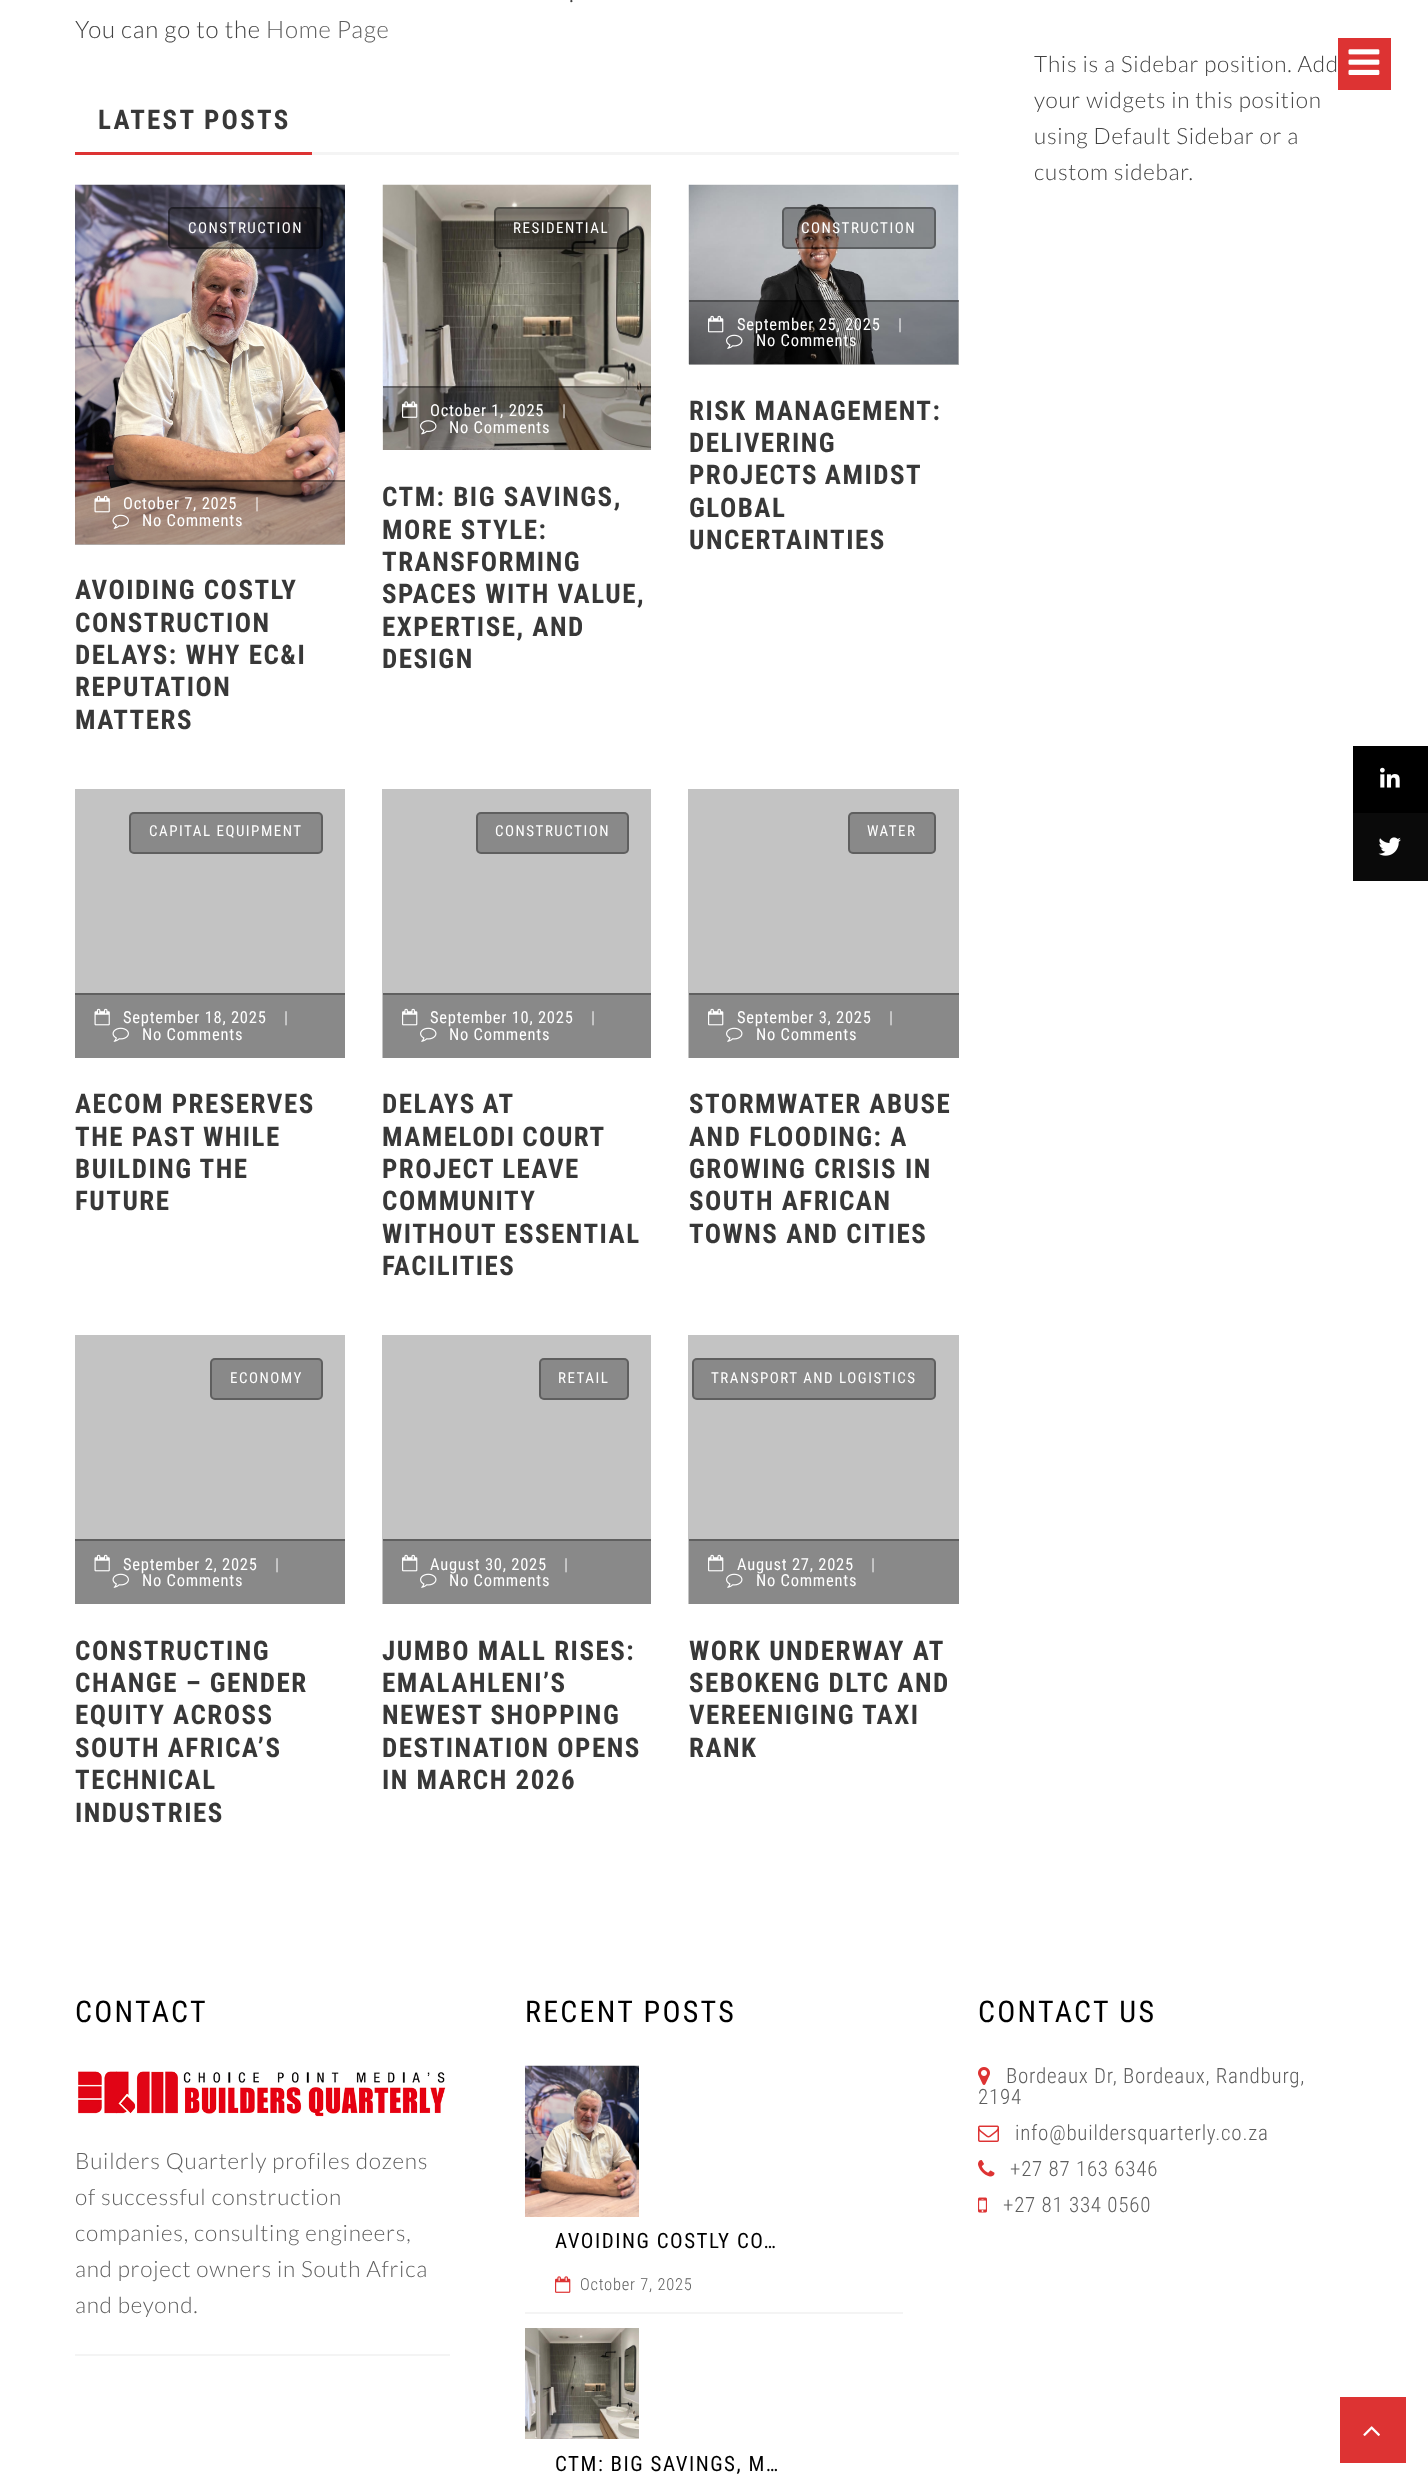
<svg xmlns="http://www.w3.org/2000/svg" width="1428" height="2485">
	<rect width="100%" height="100%" fill="#FFFFFF" />
	<g font-family="Lato" font-size="24" font-weight="300" letter-spacing="0.75" fill="#424242">
		<text x="569" y="2">.</text>
		<text x="75" y="38">You can go to the</text>
	</g>
	<text x="266" y="38" font-family="Lato" font-size="24" font-weight="300" letter-spacing="0.75" fill="#5E5E5E">Home Page</text>
	<rect x="312" y="152" width="647" height="3" fill="#F4F4F4" />
	<rect x="75" y="152" width="237" height="3" fill="#DD3333" />
	<text x="98" y="129" font-family="Roboto Condensed" font-size="27" font-weight="700" letter-spacing="2.25" fill="#383838">LATEST POSTS</text>
	<image x="75" y="184" width="270" height="361" href="assets/img1.png" />
	<rect x="168" y="207" width="155" height="42" rx="5" fill="#000000" fill-opacity="0.3" />
	<rect x="169" y="208" width="153" height="40" rx="4" fill="none" stroke="#000000" stroke-opacity="0.3" stroke-width="2" />
	<text x="188" y="233" font-family="Roboto Condensed" font-size="15" letter-spacing="1.5" fill="#FFFFFF">CONSTRUCTION</text>
	<rect x="75" y="480" width="270" height="65" fill="#000000" fill-opacity="0.3" />
	<rect x="75" y="480" width="270" height="2" fill="#000000" fill-opacity="0.3" />
	<image x="94" y="495" width="16" height="18" href="assets/img2.png" />
	<text x="123" y="509" font-family="Roboto Condensed" font-size="16.5" letter-spacing="0.75" fill="#FFFFFF">October 7, 2025</text>
	<text x="255" y="509" font-family="Roboto Condensed" font-size="16.5" fill="#EEE8E5">|</text>
	<image x="112" y="514" width="17" height="15" href="assets/img3.png" />
	<text x="142" y="526" font-family="Roboto Condensed" font-size="16.5" letter-spacing="0.75" fill="#FFFFFF">No Comments</text>
	<g font-family="Roboto Condensed" font-size="27" font-weight="700" letter-spacing="1.5" fill="#383838">
		<text x="75" y="599">AVOIDING COSTLY</text>
		<text x="75" y="632">CONSTRUCTION</text>
		<text x="75" y="664">DELAYS: WHY EC&amp;I</text>
		<text x="75" y="696">REPUTATION</text>
		<text x="75" y="729">MATTERS</text>
	</g>
	<image x="382" y="184" width="269" height="266" href="assets/img4.png" />
	<rect x="494" y="207" width="135" height="42" rx="5" fill="#000000" fill-opacity="0.3" />
	<rect x="495" y="208" width="133" height="40" rx="4" fill="none" stroke="#000000" stroke-opacity="0.3" stroke-width="2" />
	<text x="513" y="233" font-family="Roboto Condensed" font-size="15" letter-spacing="1.5" fill="#FFFFFF">RESIDENTIAL</text>
	<rect x="383" y="386" width="268" height="64" fill="#000000" fill-opacity="0.3" />
	<rect x="383" y="386" width="268" height="2" fill="#000000" fill-opacity="0.3" />
	<image x="402" y="401" width="16" height="17" href="assets/img5.png" />
	<text x="430" y="416" font-family="Roboto Condensed" font-size="16.5" letter-spacing="0.75" fill="#FFFFFF">October 1, 2025</text>
	<text x="562" y="416" font-family="Roboto Condensed" font-size="16.5" fill="#DEDAD6">|</text>
	<image x="420" y="420" width="17" height="15" href="assets/img6.png" />
	<text x="449" y="433" font-family="Roboto Condensed" font-size="16.5" letter-spacing="0.75" fill="#FFFFFF">No Comments</text>
	<g font-family="Roboto Condensed" font-size="27" font-weight="700" letter-spacing="1.5" fill="#383838">
		<text x="382" y="506">CTM: BIG SAVINGS,</text>
		<text x="382" y="539">MORE STYLE:</text>
		<text x="382" y="571">TRANSFORMING</text>
		<text x="382" y="603">SPACES WITH VALUE,</text>
		<text x="382" y="636">EXPERTISE, AND</text>
		<text x="382" y="668">DESIGN</text>
	</g>
	<image x="688" y="184" width="271" height="181" href="assets/img7.png" />
	<rect x="782" y="207" width="154" height="42" rx="5" fill="#000000" fill-opacity="0.3" />
	<rect x="783" y="208" width="152" height="40" rx="4" fill="none" stroke="#000000" stroke-opacity="0.3" stroke-width="2" />
	<text x="801" y="233" font-family="Roboto Condensed" font-size="15" letter-spacing="1.5" fill="#FFFFFF">CONSTRUCTION</text>
	<rect x="689" y="300" width="270" height="65" fill="#000000" fill-opacity="0.3" />
	<rect x="689" y="300" width="270" height="2" fill="#000000" fill-opacity="0.3" />
	<image x="708" y="315" width="16" height="18" href="assets/img8.png" />
	<text x="737" y="330" font-family="Roboto Condensed" font-size="16.5" letter-spacing="0.75" fill="#FFFFFF">September 25, 2025</text>
	<text x="898" y="330" font-family="Roboto Condensed" font-size="16.5" fill="#E5E5E6">|</text>
	<image x="726" y="334" width="17" height="15" href="assets/img9.png" />
	<text x="756" y="346" font-family="Roboto Condensed" font-size="16.5" letter-spacing="0.75" fill="#FFFFFF">No Comments</text>
	<g font-family="Roboto Condensed" font-size="27" font-weight="700" letter-spacing="1.5" fill="#383838">
		<text x="689" y="420">RISK MANAGEMENT:</text>
		<text x="689" y="452">DELIVERING</text>
		<text x="689" y="484" word-spacing="-1">PROJECTS AMIDST</text>
		<text x="689" y="517">GLOBAL</text>
		<text x="689" y="549">UNCERTAINTIES</text>
	</g>
	<rect x="75" y="789" width="270" height="204" fill="#C3C3C3" />
	<rect x="129" y="812" width="194" height="42" rx="5" fill="#898989" />
	<rect x="130" y="813" width="192" height="40" rx="4" fill="none" stroke="#000000" stroke-opacity="0.3" stroke-width="2" />
	<text x="149" y="836" font-family="Roboto Condensed" font-size="15" letter-spacing="1.5" fill="#FFFFFF">CAPITAL EQUIPMENT</text>
	<rect x="75" y="995" width="270" height="63" fill="#898989" />
	<rect x="75" y="993" width="270" height="2" fill="#606060" />
	<image x="94" y="1008" width="16" height="18" href="assets/img10.png" />
	<text x="123" y="1023" font-family="Roboto Condensed" font-size="16.5" letter-spacing="0.75" fill="#FFFFFF">September 18, 2025</text>
	<text x="284" y="1023" font-family="Roboto Condensed" font-size="16.5" fill="#E5E5E6">|</text>
	<image x="112" y="1027" width="17" height="15" href="assets/img11.png" />
	<text x="142" y="1040" font-family="Roboto Condensed" font-size="16.5" letter-spacing="0.75" fill="#FFFFFF">No Comments</text>
	<g font-family="Roboto Condensed" font-size="27" font-weight="700" letter-spacing="1.5" fill="#383838">
		<text x="75" y="1113">AECOM PRESERVES</text>
		<text x="75" y="1146">THE PAST WHILE</text>
		<text x="75" y="1178">BUILDING THE</text>
		<text x="75" y="1210">FUTURE</text>
	</g>
	<rect x="382" y="789" width="269" height="269" fill="#C3C3C3" />
	<rect x="476" y="812" width="153" height="42" rx="5" fill="#898989" />
	<rect x="477" y="813" width="151" height="40" rx="4" fill="none" stroke="#000000" stroke-opacity="0.3" stroke-width="2" />
	<text x="495" y="836" font-family="Roboto Condensed" font-size="15" letter-spacing="1.5" fill="#FFFFFF">CONSTRUCTION</text>
	<rect x="383" y="995" width="268" height="63" fill="#898989" />
	<rect x="383" y="993" width="268" height="2" fill="#606060" />
	<image x="402" y="1008" width="16" height="18" href="assets/img12.png" />
	<text x="430" y="1023" font-family="Roboto Condensed" font-size="16.5" letter-spacing="0.75" fill="#FFFFFF">September 10, 2025</text>
	<text x="591" y="1023" font-family="Roboto Condensed" font-size="16.5" fill="#E5E5E6">|</text>
	<image x="420" y="1027" width="17" height="15" href="assets/img13.png" />
	<text x="449" y="1040" font-family="Roboto Condensed" font-size="16.5" letter-spacing="0.75" fill="#FFFFFF">No Comments</text>
	<g font-family="Roboto Condensed" font-size="27" font-weight="700" letter-spacing="1.5" fill="#383838">
		<text x="382" y="1113" word-spacing="-1">DELAYS AT</text>
		<text x="382" y="1146" word-spacing="-1">MAMELODI COURT</text>
		<text x="382" y="1178">PROJECT LEAVE</text>
		<text x="382" y="1210">COMMUNITY</text>
		<text x="382" y="1243">WITHOUT ESSENTIAL</text>
		<text x="382" y="1275">FACILITIES</text>
	</g>
	<rect x="688" y="789" width="271" height="269" fill="#C3C3C3" />
	<rect x="848" y="812" width="88" height="42" rx="5" fill="#898989" />
	<rect x="849" y="813" width="86" height="40" rx="4" fill="none" stroke="#000000" stroke-opacity="0.3" stroke-width="2" />
	<text x="867" y="836" font-family="Roboto Condensed" font-size="15" letter-spacing="1.5" fill="#FFFFFF">WATER</text>
	<rect x="689" y="995" width="270" height="63" fill="#898989" />
	<rect x="689" y="993" width="270" height="2" fill="#606060" />
	<image x="708" y="1008" width="16" height="18" href="assets/img12.png" />
	<text x="737" y="1023" font-family="Roboto Condensed" font-size="16.5" letter-spacing="0.75" fill="#FFFFFF">September 3, 2025</text>
	<text x="889" y="1023" font-family="Roboto Condensed" font-size="16.5" fill="#E5E5E6">|</text>
	<image x="726" y="1027" width="17" height="15" href="assets/img13.png" />
	<text x="756" y="1040" font-family="Roboto Condensed" font-size="16.5" letter-spacing="0.75" fill="#FFFFFF">No Comments</text>
	<g font-family="Roboto Condensed" font-size="27" font-weight="700" letter-spacing="1.5" fill="#383838">
		<text x="689" y="1113">STORMWATER ABUSE</text>
		<text x="689" y="1146">AND FLOODING: A</text>
		<text x="689" y="1178">GROWING CRISIS IN</text>
		<text x="689" y="1210">SOUTH AFRICAN</text>
		<text x="689" y="1243">TOWNS AND CITIES</text>
	</g>
	<rect x="75" y="1335" width="270" height="204" fill="#C3C3C3" />
	<rect x="210" y="1358" width="113" height="42" rx="5" fill="#898989" />
	<rect x="211" y="1359" width="111" height="40" rx="4" fill="none" stroke="#000000" stroke-opacity="0.3" stroke-width="2" />
	<text x="230" y="1383" font-family="Roboto Condensed" font-size="15" letter-spacing="1.5" fill="#FFFFFF">ECONOMY</text>
	<rect x="75" y="1541" width="270" height="63" fill="#898989" />
	<rect x="75" y="1539" width="270" height="2" fill="#606060" />
	<image x="94" y="1554" width="16" height="18" href="assets/img10.png" />
	<text x="123" y="1570" font-family="Roboto Condensed" font-size="16.5" letter-spacing="0.75" fill="#FFFFFF">September 2, 2025</text>
	<text x="275" y="1570" font-family="Roboto Condensed" font-size="16.5" fill="#E5E5E6">|</text>
	<image x="112" y="1573" width="17" height="15" href="assets/img11.png" />
	<text x="142" y="1586" font-family="Roboto Condensed" font-size="16.5" letter-spacing="0.75" fill="#FFFFFF">No Comments</text>
	<g font-family="Roboto Condensed" font-size="27" font-weight="700" letter-spacing="1.5" fill="#383838">
		<text x="75" y="1660">CONSTRUCTING</text>
		<text x="75" y="1692">CHANGE – GENDER</text>
		<text x="75" y="1724">EQUITY ACROSS</text>
		<text x="75" y="1757">SOUTH AFRICA’S</text>
		<text x="75" y="1789">TECHNICAL</text>
		<text x="75" y="1822">INDUSTRIES</text>
	</g>
	<rect x="382" y="1335" width="269" height="269" fill="#C3C3C3" />
	<rect x="539" y="1358" width="90" height="42" rx="5" fill="#898989" />
	<rect x="540" y="1359" width="88" height="40" rx="4" fill="none" stroke="#000000" stroke-opacity="0.3" stroke-width="2" />
	<text x="558" y="1383" font-family="Roboto Condensed" font-size="15" letter-spacing="1.5" fill="#FFFFFF">RETAIL</text>
	<rect x="383" y="1541" width="268" height="63" fill="#898989" />
	<rect x="383" y="1539" width="268" height="2" fill="#606060" />
	<image x="402" y="1554" width="16" height="18" href="assets/img12.png" />
	<text x="430" y="1570" font-family="Roboto Condensed" font-size="16.5" letter-spacing="0.75" fill="#FFFFFF">August 30, 2025</text>
	<text x="564" y="1570" font-family="Roboto Condensed" font-size="16.5" fill="#E5E5E6">|</text>
	<image x="420" y="1573" width="17" height="15" href="assets/img13.png" />
	<text x="449" y="1586" font-family="Roboto Condensed" font-size="16.5" letter-spacing="0.75" fill="#FFFFFF">No Comments</text>
	<g font-family="Roboto Condensed" font-size="27" font-weight="700" letter-spacing="1.5" fill="#383838">
		<text x="382" y="1660">JUMBO MALL RISES:</text>
		<text x="382" y="1692">EMALAHLENI’S</text>
		<text x="382" y="1724">NEWEST SHOPPING</text>
		<text x="382" y="1757">DESTINATION OPENS</text>
		<text x="382" y="1789">IN MARCH 2026</text>
	</g>
	<rect x="688" y="1335" width="271" height="269" fill="#C3C3C3" />
	<rect x="692" y="1358" width="244" height="42" rx="5" fill="#898989" />
	<rect x="693" y="1359" width="242" height="40" rx="4" fill="none" stroke="#000000" stroke-opacity="0.3" stroke-width="2" />
	<text x="711" y="1383" font-family="Roboto Condensed" font-size="15" letter-spacing="1.5" fill="#FFFFFF">TRANSPORT AND LOGISTICS</text>
	<rect x="689" y="1541" width="270" height="63" fill="#898989" />
	<rect x="689" y="1539" width="270" height="2" fill="#606060" />
	<image x="708" y="1554" width="16" height="18" href="assets/img12.png" />
	<text x="737" y="1570" font-family="Roboto Condensed" font-size="16.5" letter-spacing="0.75" fill="#FFFFFF">August 27, 2025</text>
	<text x="871" y="1570" font-family="Roboto Condensed" font-size="16.5" fill="#E5E5E6">|</text>
	<image x="726" y="1573" width="17" height="15" href="assets/img13.png" />
	<text x="756" y="1586" font-family="Roboto Condensed" font-size="16.5" letter-spacing="0.75" fill="#FFFFFF">No Comments</text>
	<g font-family="Roboto Condensed" font-size="27" font-weight="700" letter-spacing="1.5" fill="#383838">
		<text x="689" y="1660">WORK UNDERWAY AT</text>
		<text x="689" y="1692">SEBOKENG DLTC AND</text>
		<text x="689" y="1724">VEREENIGING TAXI</text>
		<text x="689" y="1757">RANK</text>
	</g>
	<g font-family="Lato" font-size="22.5" font-weight="300" letter-spacing="0.75" fill="#424242">
		<text x="1034" y="72">This is a Sidebar position. Add</text>
		<text x="1034" y="108">your widgets in this position</text>
		<text x="1034" y="144">using Default Sidebar or a</text>
		<text x="1034" y="180">custom sidebar.</text>
	</g>
	<rect x="1338" y="38" width="53" height="52" fill="#DD3333" />
	<image x="1348" y="49" width="32" height="26" href="assets/img14.png" />
	<text x="75" y="2022" font-family="Roboto Condensed" font-size="30" letter-spacing="2.25" fill="#000000">CONTACT</text>
	<image x="78" y="2071" width="368" height="46" href="assets/img15.png" />
	<rect x="75" y="2354" width="375" height="2" fill="#F4F4F4" />
	<g font-family="Lato" font-size="22.5" font-weight="300" letter-spacing="0.75" fill="#5E5E5E">
		<text x="75" y="2169">Builders Quarterly profiles dozens</text>
		<text x="75" y="2205">of successful construction</text>
		<text x="75" y="2241">companies, consulting engineers,</text>
		<text x="75" y="2277">and project owners in South Africa</text>
		<text x="75" y="2313">and beyond.</text>
	</g>
	<text x="525" y="2022" font-family="Roboto Condensed" font-size="30" letter-spacing="2.25" fill="#000000">RECENT POSTS</text>
	<rect x="525" y="2312" width="378" height="2" fill="#F4F4F4" />
	<image x="525" y="2065" width="114" height="152" href="assets/img16.png" />
	<text x="555" y="2248" font-family="Roboto Condensed" font-size="21" letter-spacing="1.5" fill="#000000">AVOIDING COSTLY CO…</text>
	<image x="555" y="2276" width="16" height="17" href="assets/img17.png" />
	<text x="580" y="2290" font-family="Roboto Condensed" font-size="16.5" font-weight="300" letter-spacing="0.75" fill="#5E5E5E">October 7, 2025</text>
	<image x="525" y="2328" width="114" height="111" href="assets/img18.png" />
	<text x="555" y="2471" font-family="Roboto Condensed" font-size="21" letter-spacing="1.5" fill="#000000">CTM: BIG SAVINGS, M…</text>
	<text x="978" y="2022" font-family="Roboto Condensed" font-size="30" letter-spacing="2.25" fill="#000000">CONTACT US</text>
	<image x="978" y="2067" width="12" height="18" href="assets/img19.png" />
	<g font-family="Roboto Condensed" font-size="21" font-weight="300" letter-spacing="0.75" fill="#5E5E5E">
		<text x="1006" y="2083">Bordeaux Dr, Bordeaux, Randburg,</text>
		<text x="978" y="2104">2194</text>
	</g>
	<image x="978" y="2125" width="21" height="17" href="assets/img20.png" />
	<text x="1015" y="2140" font-family="Roboto Condensed" font-size="21" font-weight="300" letter-spacing="0.75" fill="#5E5E5E">info@buildersquarterly.co.za</text>
	<image x="978" y="2160" width="17" height="17" href="assets/img21.png" />
	<text x="1010" y="2176" font-family="Roboto Condensed" font-size="21" font-weight="300" letter-spacing="0.75" fill="#5E5E5E">+27 87 163 6346</text>
	<image x="978" y="2197" width="9" height="16" href="assets/img22.png" />
	<text x="1003" y="2212" font-family="Roboto Condensed" font-size="21" font-weight="300" letter-spacing="0.75" fill="#5E5E5E">+27 81 334 0560</text>
	<rect x="1353" y="746" width="75" height="67" fill="#000000" />
	<image x="1380" y="767" width="20" height="21" href="assets/img23.png" />
	<rect x="1353" y="813" width="75" height="68" fill="#0A0A0A" />
	<image x="1378" y="837" width="23" height="19" href="assets/img24.png" />
	<rect x="1340" y="2397" width="66" height="66" fill="#DD3333" />
	<image x="1363" y="2426" width="17" height="10" href="assets/img25.png" />
</svg>
